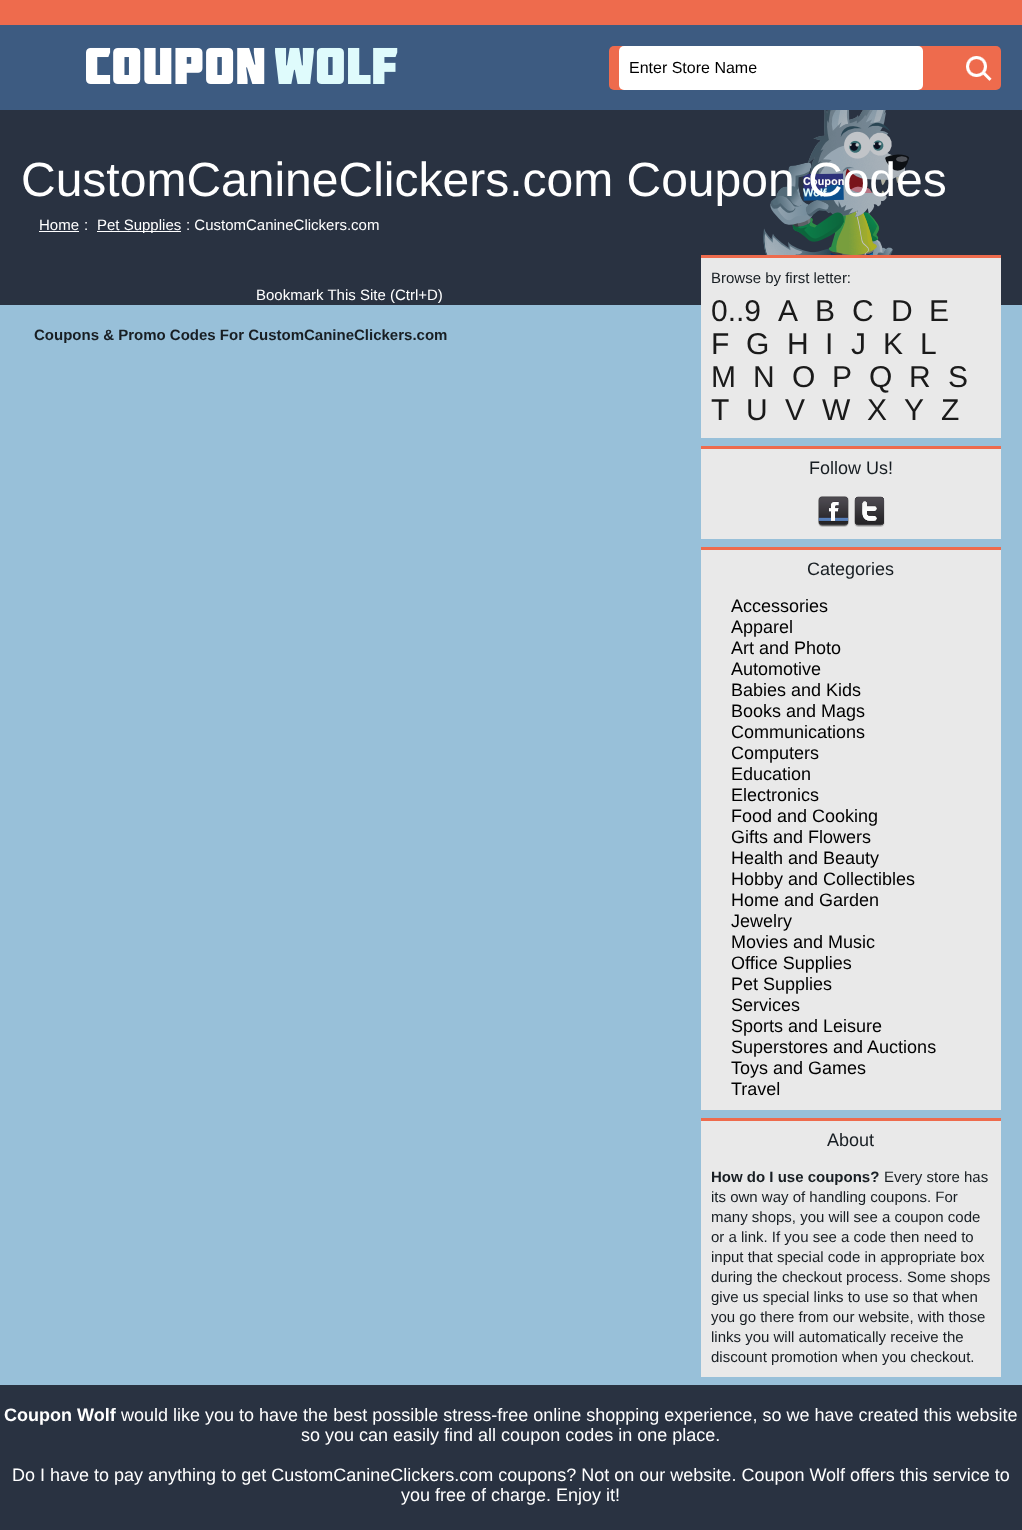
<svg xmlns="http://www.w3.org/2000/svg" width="1022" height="1530">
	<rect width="100%" height="100%" fill="#98C0D9" />
	<rect x="0" y="25" width="1022" height="85" fill="#3D5B81" />
	<rect x="0" y="0" width="1022" height="25" fill="#EE6B4D" />
	<image x="86" y="47" width="312" height="37" href="assets/img1.png" />
	<rect x="609" y="46" width="392" height="44" rx="5" fill="#EE6B4D" />
	<rect x="619" y="46" width="304" height="44" rx="5" fill="#FFFFFF" />
	<text x="629" y="73" font-family="Liberation Sans" font-size="16" fill="#000000">Enter Store Name</text>
	<image x="966" y="56" width="26" height="25" href="assets/img2.png" />
	<rect x="0" y="110" width="1022" height="195" fill="#293241" />
	<image x="763" y="110" width="156" height="145" href="assets/img3.png" />
	<text x="21" y="196" font-family="Liberation Sans" font-size="48" fill="#FFFFFF">CustomCanineClickers.com Coupon Codes</text>
	<text x="39" y="230" font-family="Liberation Sans" font-size="15" fill="#FFFFFF">Home</text>
	<rect x="39" y="231" width="40" height="1" fill="#FFFFFF" />
	<text x="84" y="230" font-family="Liberation Sans" font-size="15" fill="#FFFFFF">:</text>
	<rect x="97" y="231" width="84" height="1" fill="#FFFFFF" />
	<g font-family="Liberation Sans" font-size="15" fill="#FFFFFF">
		<text x="97" y="230">Pet Supplies</text>
		<text x="186" y="230">: CustomCanineClickers.com</text>
		<text x="256" y="300">Bookmark This Site (Ctrl+D)</text>
	</g>
	<text x="34" y="340" font-family="Liberation Sans" font-size="15" font-weight="700" fill="#181E23">Coupons &amp; Promo Codes For CustomCanineClickers.com</text>
	<rect x="701" y="258" width="300" height="180" fill="#E9E9E9" />
	<rect x="701" y="255" width="300" height="3" fill="#EE6B4D" />
	<text x="711" y="283" font-family="Liberation Sans" font-size="15" fill="#181E23">Browse by first letter:</text>
	<g font-family="Liberation Sans" font-size="30" fill="#1A1A1A">
		<text x="711" y="321">0..9</text>
		<text x="778" y="321">A</text>
		<text x="815" y="321">B</text>
		<text x="852" y="321">C</text>
		<text x="891" y="321">D</text>
		<text x="929" y="321">E</text>
		<text x="711" y="354">F</text>
		<text x="746" y="354">G</text>
		<text x="787" y="354">H</text>
		<text x="825" y="354">I</text>
		<text x="851" y="354">J</text>
		<text x="883" y="354">K</text>
		<text x="920" y="354">L</text>
		<text x="711" y="387">M</text>
		<text x="753" y="387">N</text>
		<text x="792" y="387">O</text>
		<text x="832" y="387">P</text>
		<text x="869" y="387">Q</text>
		<text x="909" y="387">R</text>
		<text x="948" y="387">S</text>
		<text x="711" y="420">T</text>
		<text x="746" y="420">U</text>
		<text x="785" y="420">V</text>
		<text x="822" y="420">W</text>
		<text x="867" y="420">X</text>
		<text x="904" y="420">Y</text>
		<text x="941" y="420">Z</text>
	</g>
	<rect x="701" y="449" width="300" height="90" fill="#E9E9E9" />
	<rect x="701" y="446" width="300" height="3" fill="#EE6B4D" />
	<text x="809" y="474" font-family="Liberation Sans" font-size="18" fill="#181E23">Follow Us!</text>
	<image x="818" y="496" width="31" height="31" href="assets/img4.png" />
	<image x="854" y="496" width="31" height="31" href="assets/img5.png" />
	<rect x="701" y="550" width="300" height="560" fill="#E9E9E9" />
	<rect x="701" y="547" width="300" height="3" fill="#EE6B4D" />
	<text x="807" y="575" font-family="Liberation Sans" font-size="18" fill="#181E23">Categories</text>
	<g font-family="Liberation Sans" font-size="18" fill="#000000">
		<text x="731" y="612">Accessories</text>
		<text x="731" y="633">Apparel</text>
		<text x="731" y="654">Art and Photo</text>
		<text x="731" y="675">Automotive</text>
		<text x="731" y="696">Babies and Kids</text>
		<text x="731" y="717">Books and Mags</text>
		<text x="731" y="738">Communications</text>
		<text x="731" y="759">Computers</text>
		<text x="731" y="780">Education</text>
		<text x="731" y="801">Electronics</text>
		<text x="731" y="822">Food and Cooking</text>
		<text x="731" y="843">Gifts and Flowers</text>
		<text x="731" y="864">Health and Beauty</text>
		<text x="731" y="885">Hobby and Collectibles</text>
		<text x="731" y="906">Home and Garden</text>
		<text x="731" y="927">Jewelry</text>
		<text x="731" y="948">Movies and Music</text>
		<text x="731" y="969">Office Supplies</text>
		<text x="731" y="990">Pet Supplies</text>
		<text x="731" y="1011">Services</text>
		<text x="731" y="1032">Sports and Leisure</text>
		<text x="731" y="1053">Superstores and Auctions</text>
		<text x="731" y="1074">Toys and Games</text>
		<text x="731" y="1095">Travel</text>
	</g>
	<rect x="701" y="1121" width="300" height="256" fill="#E9E9E9" />
	<rect x="701" y="1118" width="300" height="3" fill="#EE6B4D" />
	<text x="827" y="1146" font-family="Liberation Sans" font-size="18" fill="#181E23">About</text>
	<text x="711" y="1182" font-family="Liberation Sans" font-size="15" font-weight="700" fill="#181E23">How do I use coupons?</text>
	<g font-family="Liberation Sans" font-size="15" fill="#181E23">
		<text x="884" y="1182">Every store has</text>
		<text x="711" y="1202">its own way of handling coupons. For</text>
		<text x="711" y="1222">many shops, you will see a coupon code</text>
		<text x="711" y="1242">or a link. If you see a code then need to</text>
		<text x="711" y="1262">input that special code in appropriate box</text>
		<text x="711" y="1282">during the checkout process. Some shops</text>
		<text x="711" y="1302">give us special links to use so that when</text>
		<text x="711" y="1322">you go there from our website, with those</text>
		<text x="711" y="1342">links you will automatically receive the</text>
		<text x="711" y="1362">discount promotion when you checkout.</text>
	</g>
	<rect x="0" y="1385" width="1022" height="145" fill="#293241" />
	<text x="4" y="1421" font-family="Liberation Sans" font-size="18" font-weight="700" fill="#FFFFFF">Coupon Wolf</text>
	<g font-family="Liberation Sans" font-size="18" fill="#FFFFFF">
		<text x="121" y="1421">would like you to have the best possible stress-free online shopping experience, so we have created this website</text>
		<text x="301" y="1441">so you can easily find all coupon codes in one place.</text>
		<text x="12" y="1481">Do I have to pay anything to get CustomCanineClickers.com coupons? Not on our website. Coupon Wolf offers this service to</text>
		<text x="401" y="1501">you free of charge. Enjoy it!</text>
	</g>
</svg>
